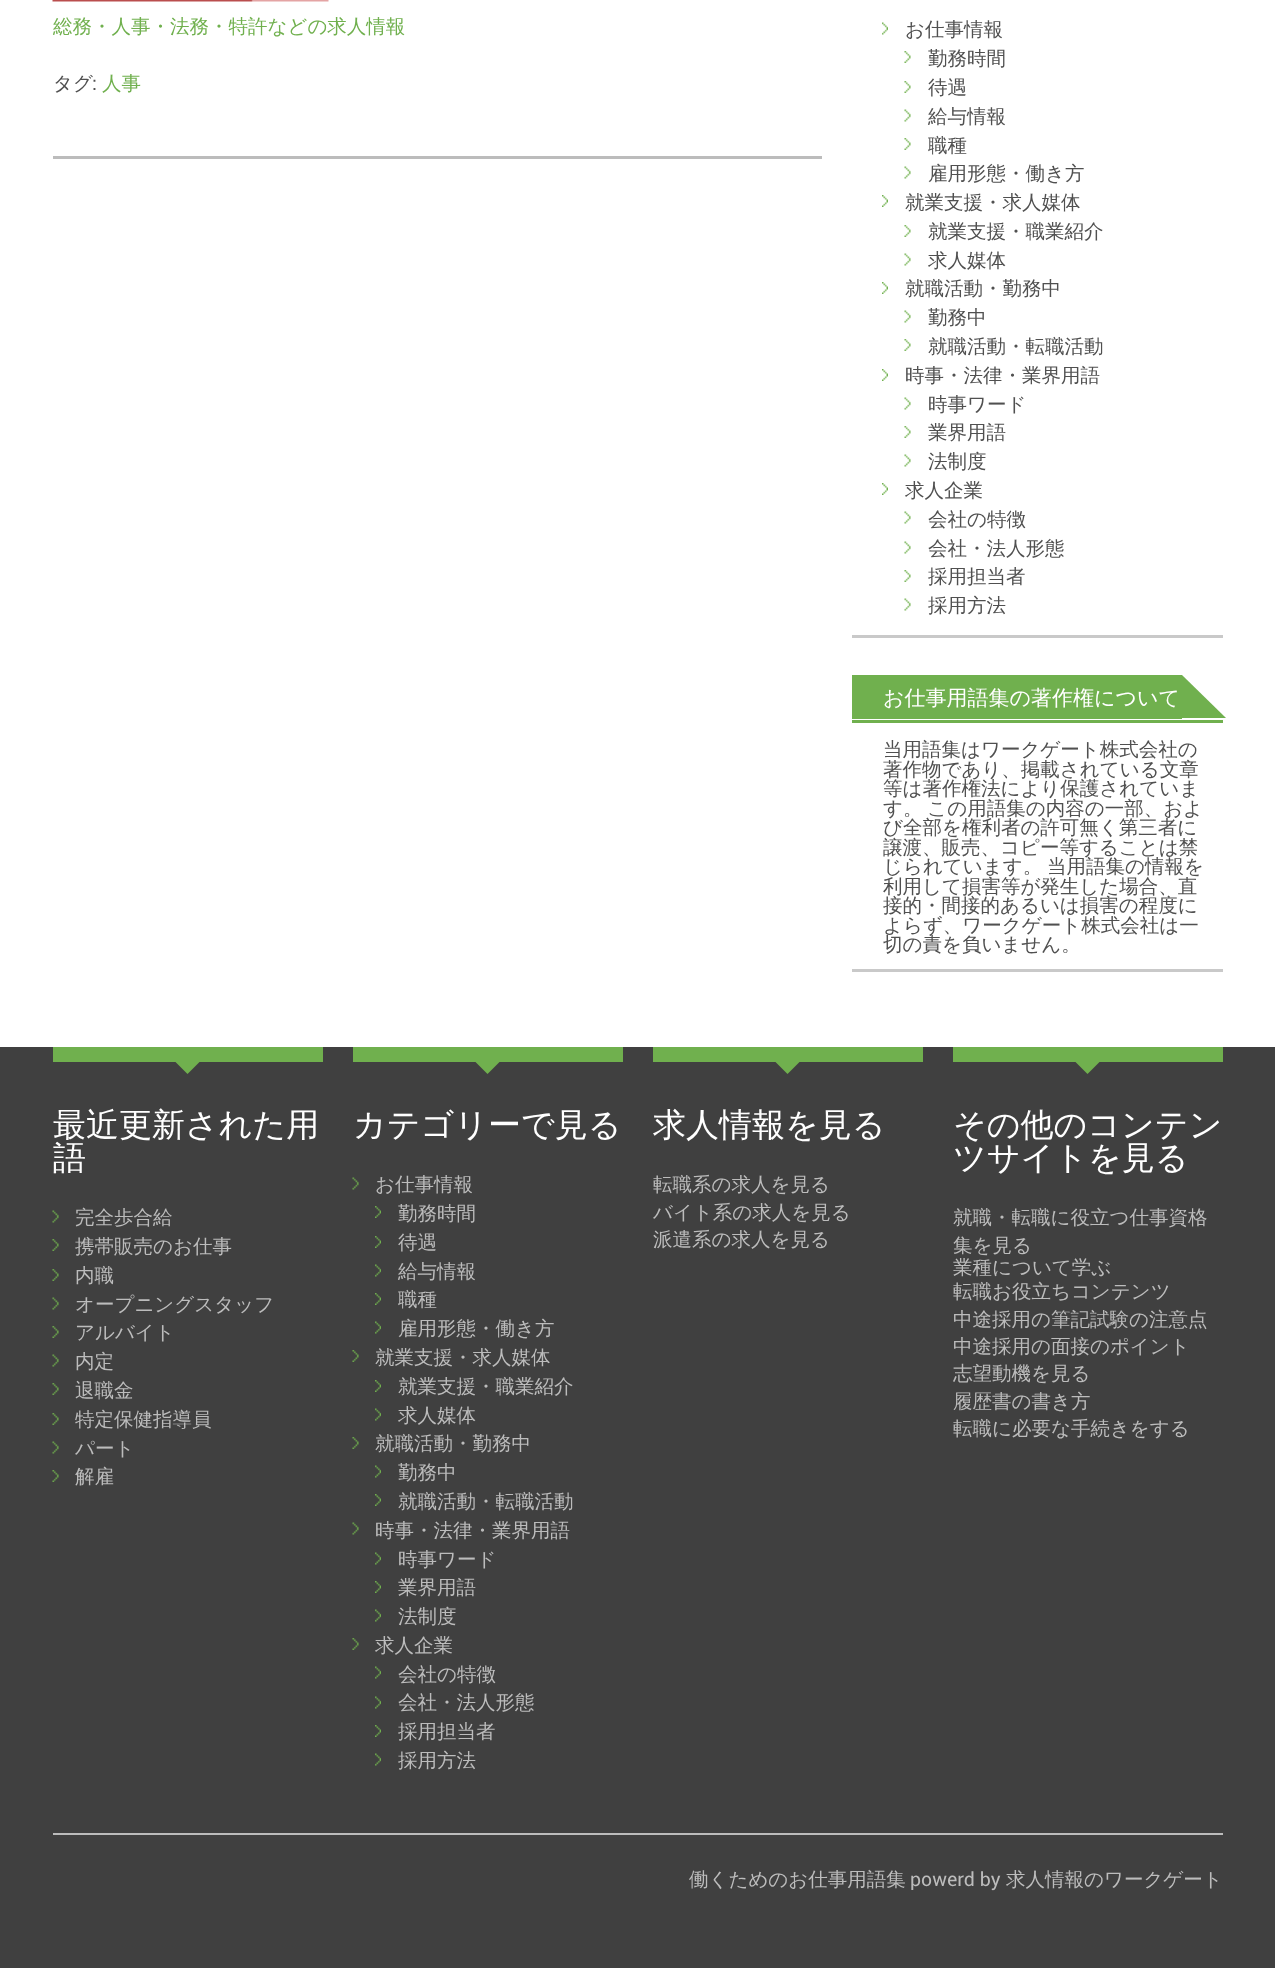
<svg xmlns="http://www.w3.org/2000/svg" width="1275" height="1968">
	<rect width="100%" height="100%" fill="#FFFFFF" />
	<rect x="53" y="156" width="769" height="3" fill="#BCBCBC" />
	<image x="52" y="0" width="277" height="2" href="assets/img1.png" />
	<text x="53" y="33" font-family="WenQuanYi Zen Hei" font-size="19.5" font-weight="500" fill="#70B04E">総務・人事・法務・特許などの求人情報</text>
	<text x="53" y="90" font-family="WenQuanYi Zen Hei" font-size="19.5" font-weight="500" fill="#505050">タグ</text>
	<text x="92" y="90" font-family="roboto" font-size="19.5" fill="#505050">:</text>
	<text x="102" y="90" font-family="WenQuanYi Zen Hei" font-size="19.5" font-weight="500" fill="#70B04E">人事</text>
	<rect x="852" y="635" width="371" height="3" fill="#C9C9C9" />
	<image x="882" y="22" width="6" height="13" href="assets/img2.png" />
	<text x="905" y="36" font-family="WenQuanYi Zen Hei" font-size="19.5" font-weight="500" fill="#505050">お仕事情報</text>
	<image x="904" y="51" width="7" height="12" href="assets/img3.png" />
	<text x="928" y="65" font-family="WenQuanYi Zen Hei" font-size="19.5" font-weight="500" fill="#505050">勤務時間</text>
	<image x="904" y="81" width="7" height="12" href="assets/img3.png" />
	<text x="928" y="94" font-family="WenQuanYi Zen Hei" font-size="19.5" font-weight="500" fill="#505050">待遇</text>
	<image x="904" y="109" width="7" height="13" href="assets/img4.png" />
	<text x="928" y="123" font-family="WenQuanYi Zen Hei" font-size="19.5" font-weight="500" fill="#505050">給与情報</text>
	<image x="904" y="138" width="7" height="12" href="assets/img3.png" />
	<text x="928" y="152" font-family="WenQuanYi Zen Hei" font-size="19.5" font-weight="500" fill="#505050">職種</text>
	<image x="904" y="166" width="7" height="13" href="assets/img4.png" />
	<text x="928" y="180" font-family="WenQuanYi Zen Hei" font-size="19.5" font-weight="500" fill="#505050">雇用形態・働き方</text>
	<image x="882" y="195" width="6" height="12" href="assets/img5.png" />
	<text x="905" y="209" font-family="WenQuanYi Zen Hei" font-size="19.5" font-weight="500" fill="#505050">就業支援・求人媒体</text>
	<image x="904" y="225" width="7" height="12" href="assets/img3.png" />
	<text x="928" y="238" font-family="WenQuanYi Zen Hei" font-size="19.5" font-weight="500" fill="#505050">就業支援・職業紹介</text>
	<image x="904" y="253" width="7" height="13" href="assets/img4.png" />
	<text x="928" y="267" font-family="WenQuanYi Zen Hei" font-size="19.5" font-weight="500" fill="#505050">求人媒体</text>
	<image x="882" y="282" width="6" height="12" href="assets/img5.png" />
	<text x="905" y="295" font-family="WenQuanYi Zen Hei" font-size="19.5" font-weight="500" fill="#505050">就職活動・勤務中</text>
	<image x="904" y="310" width="7" height="13" href="assets/img4.png" />
	<text x="928" y="324" font-family="WenQuanYi Zen Hei" font-size="19.5" font-weight="500" fill="#505050">勤務中</text>
	<image x="904" y="339" width="7" height="12" href="assets/img3.png" />
	<text x="928" y="353" font-family="WenQuanYi Zen Hei" font-size="19.5" font-weight="500" fill="#505050">就職活動・転職活動</text>
	<image x="882" y="369" width="6" height="12" href="assets/img5.png" />
	<text x="905" y="382" font-family="WenQuanYi Zen Hei" font-size="19.5" font-weight="500" fill="#505050">時事・法律・業界用語</text>
	<image x="904" y="397" width="7" height="13" href="assets/img4.png" />
	<text x="928" y="411" font-family="WenQuanYi Zen Hei" font-size="19.5" font-weight="500" fill="#505050">時事ワード</text>
	<image x="904" y="426" width="7" height="12" href="assets/img3.png" />
	<text x="928" y="439" font-family="WenQuanYi Zen Hei" font-size="19.5" font-weight="500" fill="#505050">業界用語</text>
	<image x="904" y="454" width="7" height="13" href="assets/img4.png" />
	<text x="928" y="468" font-family="WenQuanYi Zen Hei" font-size="19.5" font-weight="500" fill="#505050">法制度</text>
	<image x="882" y="483" width="6" height="12" href="assets/img5.png" />
	<text x="905" y="497" font-family="WenQuanYi Zen Hei" font-size="19.5" font-weight="500" fill="#505050">求人企業</text>
	<image x="904" y="511" width="7" height="13" href="assets/img4.png" />
	<text x="928" y="526" font-family="WenQuanYi Zen Hei" font-size="19.5" font-weight="500" fill="#505050">会社の特徴</text>
	<image x="904" y="541" width="7" height="13" href="assets/img4.png" />
	<text x="928" y="555" font-family="WenQuanYi Zen Hei" font-size="19.5" font-weight="500" fill="#505050">会社・法人形態</text>
	<image x="904" y="570" width="7" height="12" href="assets/img3.png" />
	<text x="928" y="583" font-family="WenQuanYi Zen Hei" font-size="19.5" font-weight="500" fill="#505050">採用担当者</text>
	<image x="904" y="598" width="7" height="13" href="assets/img4.png" />
	<text x="928" y="612" font-family="WenQuanYi Zen Hei" font-size="19.5" font-weight="500" fill="#505050">採用方法</text>
	<rect x="852" y="969" width="371" height="3" fill="#C9C9C9" />
	<rect x="852" y="675" width="330" height="44" fill="#70B04E" />
	<text x="883" y="705" font-family="WenQuanYi Zen Hei" font-size="21" font-weight="500" fill="#FFFFFF">お仕事用語集の著作権について</text>
	<path d="M1182 718V675L1226 718Z" fill="#70B04E" />
	<rect x="852" y="720" width="371" height="3" fill="#70B04E" />
	<g font-family="WenQuanYi Zen Hei" font-size="19.5" font-weight="500" fill="#505050">
		<text x="883" y="756">当用語集はワークゲート株式会社の</text>
		<text x="883" y="776">著作物であり、掲載されている文章</text>
		<text x="883" y="795">等は著作権法により保護されていま</text>
		<text x="883" y="815" word-spacing="-1">す。 この用語集の内容の一部、およ</text>
		<text x="883" y="834">び全部を権利者の許可無く第三者に</text>
		<text x="883" y="854">譲渡、販売、コピー等することは禁</text>
		<text x="883" y="873" word-spacing="-1">じられています。 当用語集の情報を</text>
		<text x="883" y="893">利用して損害等が発生した場合、直</text>
		<text x="883" y="912">接的・間接的あるいは損害の程度に</text>
		<text x="883" y="932">よらず、ワークゲート株式会社は一</text>
		<text x="883" y="951">切の責を負いません。</text>
	</g>
	<rect x="0" y="1047" width="1275" height="921" fill="#404040" />
	<rect x="53" y="1047" width="270" height="15" fill="#70B04E" />
	<path d="M175.5 1062H199.5L187.5 1074Z" fill="#70B04E" />
	<g font-family="WenQuanYi Zen Hei" font-size="33" font-weight="500" fill="#FFFFFF">
		<text x="53" y="1136">最近更新された用</text>
		<text x="53" y="1169">語</text>
	</g>
	<image x="52" y="1210" width="7" height="13" href="assets/img6.png" />
	<text x="75" y="1224" font-family="WenQuanYi Zen Hei" font-size="19.5" font-weight="500" fill="#BCBCBC">完全歩合給</text>
	<image x="52" y="1239" width="7" height="12" href="assets/img7.png" />
	<text x="75" y="1253" font-family="WenQuanYi Zen Hei" font-size="19.5" font-weight="500" fill="#BCBCBC">携帯販売のお仕事</text>
	<image x="52" y="1269" width="7" height="12" href="assets/img7.png" />
	<text x="75" y="1282" font-family="WenQuanYi Zen Hei" font-size="19.5" font-weight="500" fill="#BCBCBC">内職</text>
	<image x="52" y="1297" width="7" height="13" href="assets/img6.png" />
	<text x="75" y="1311" font-family="WenQuanYi Zen Hei" font-size="19.5" font-weight="500" fill="#BCBCBC">オープニングスタッフ</text>
	<image x="52" y="1326" width="7" height="12" href="assets/img7.png" />
	<text x="75" y="1339" font-family="WenQuanYi Zen Hei" font-size="19.5" font-weight="500" fill="#BCBCBC">アルバイト</text>
	<image x="52" y="1354" width="7" height="13" href="assets/img6.png" />
	<text x="75" y="1368" font-family="WenQuanYi Zen Hei" font-size="19.5" font-weight="500" fill="#BCBCBC">内定</text>
	<image x="52" y="1383" width="7" height="12" href="assets/img7.png" />
	<text x="75" y="1397" font-family="WenQuanYi Zen Hei" font-size="19.5" font-weight="500" fill="#BCBCBC">退職金</text>
	<image x="52" y="1413" width="7" height="12" href="assets/img7.png" />
	<text x="75" y="1426" font-family="WenQuanYi Zen Hei" font-size="19.5" font-weight="500" fill="#BCBCBC">特定保健指導員</text>
	<image x="52" y="1441" width="7" height="13" href="assets/img6.png" />
	<text x="75" y="1455" font-family="WenQuanYi Zen Hei" font-size="19.5" font-weight="500" fill="#BCBCBC">パート</text>
	<image x="52" y="1470" width="7" height="12" href="assets/img7.png" />
	<text x="75" y="1483" font-family="WenQuanYi Zen Hei" font-size="19.5" font-weight="500" fill="#BCBCBC">解雇</text>
	<rect x="353" y="1047" width="270" height="15" fill="#70B04E" />
	<path d="M475.5 1062H499.5L487.5 1074Z" fill="#70B04E" />
	<text x="353" y="1136" font-family="WenQuanYi Zen Hei" font-size="33" font-weight="500" fill="#FFFFFF">カテゴリーで見る</text>
	<image x="352" y="1177" width="7" height="13" href="assets/img8.png" />
	<text x="375" y="1191" font-family="WenQuanYi Zen Hei" font-size="19.5" font-weight="500" fill="#BCBCBC">お仕事情報</text>
	<image x="375" y="1206" width="6" height="12" href="assets/img9.png" />
	<text x="398" y="1220" font-family="WenQuanYi Zen Hei" font-size="19.5" font-weight="500" fill="#BCBCBC">勤務時間</text>
	<image x="375" y="1236" width="6" height="12" href="assets/img9.png" />
	<text x="398" y="1249" font-family="WenQuanYi Zen Hei" font-size="19.5" font-weight="500" fill="#BCBCBC">待遇</text>
	<image x="375" y="1264" width="6" height="13" href="assets/img10.png" />
	<text x="398" y="1278" font-family="WenQuanYi Zen Hei" font-size="19.5" font-weight="500" fill="#BCBCBC">給与情報</text>
	<image x="375" y="1293" width="6" height="12" href="assets/img9.png" />
	<text x="398" y="1306" font-family="WenQuanYi Zen Hei" font-size="19.5" font-weight="500" fill="#BCBCBC">職種</text>
	<image x="375" y="1321" width="6" height="13" href="assets/img10.png" />
	<text x="398" y="1335" font-family="WenQuanYi Zen Hei" font-size="19.5" font-weight="500" fill="#BCBCBC">雇用形態・働き方</text>
	<image x="352" y="1350" width="7" height="12" href="assets/img11.png" />
	<text x="375" y="1364" font-family="WenQuanYi Zen Hei" font-size="19.5" font-weight="500" fill="#BCBCBC">就業支援・求人媒体</text>
	<image x="375" y="1380" width="6" height="12" href="assets/img9.png" />
	<text x="398" y="1393" font-family="WenQuanYi Zen Hei" font-size="19.5" font-weight="500" fill="#BCBCBC">就業支援・職業紹介</text>
	<image x="375" y="1408" width="6" height="13" href="assets/img10.png" />
	<text x="398" y="1422" font-family="WenQuanYi Zen Hei" font-size="19.5" font-weight="500" fill="#BCBCBC">求人媒体</text>
	<image x="352" y="1437" width="7" height="12" href="assets/img11.png" />
	<text x="375" y="1450" font-family="WenQuanYi Zen Hei" font-size="19.5" font-weight="500" fill="#BCBCBC">就職活動・勤務中</text>
	<image x="375" y="1465" width="6" height="13" href="assets/img10.png" />
	<text x="398" y="1479" font-family="WenQuanYi Zen Hei" font-size="19.5" font-weight="500" fill="#BCBCBC">勤務中</text>
	<image x="375" y="1494" width="6" height="12" href="assets/img9.png" />
	<text x="398" y="1508" font-family="WenQuanYi Zen Hei" font-size="19.5" font-weight="500" fill="#BCBCBC">就職活動・転職活動</text>
	<image x="352" y="1522" width="7" height="13" href="assets/img8.png" />
	<text x="375" y="1537" font-family="WenQuanYi Zen Hei" font-size="19.5" font-weight="500" fill="#BCBCBC">時事・法律・業界用語</text>
	<image x="375" y="1552" width="6" height="13" href="assets/img10.png" />
	<text x="398" y="1566" font-family="WenQuanYi Zen Hei" font-size="19.5" font-weight="500" fill="#BCBCBC">時事ワード</text>
	<image x="375" y="1581" width="6" height="12" href="assets/img9.png" />
	<text x="398" y="1594" font-family="WenQuanYi Zen Hei" font-size="19.5" font-weight="500" fill="#BCBCBC">業界用語</text>
	<image x="375" y="1609" width="6" height="13" href="assets/img10.png" />
	<text x="398" y="1623" font-family="WenQuanYi Zen Hei" font-size="19.5" font-weight="500" fill="#BCBCBC">法制度</text>
	<image x="352" y="1638" width="7" height="12" href="assets/img11.png" />
	<text x="375" y="1652" font-family="WenQuanYi Zen Hei" font-size="19.5" font-weight="500" fill="#BCBCBC">求人企業</text>
	<image x="375" y="1666" width="6" height="13" href="assets/img10.png" />
	<text x="398" y="1681" font-family="WenQuanYi Zen Hei" font-size="19.5" font-weight="500" fill="#BCBCBC">会社の特徴</text>
	<image x="375" y="1696" width="6" height="13" href="assets/img10.png" />
	<text x="398" y="1709" font-family="WenQuanYi Zen Hei" font-size="19.5" font-weight="500" fill="#BCBCBC">会社・法人形態</text>
	<image x="375" y="1725" width="6" height="12" href="assets/img9.png" />
	<text x="398" y="1738" font-family="WenQuanYi Zen Hei" font-size="19.5" font-weight="500" fill="#BCBCBC">採用担当者</text>
	<image x="375" y="1753" width="6" height="13" href="assets/img10.png" />
	<text x="398" y="1767" font-family="WenQuanYi Zen Hei" font-size="19.5" font-weight="500" fill="#BCBCBC">採用方法</text>
	<rect x="653" y="1047" width="270" height="15" fill="#70B04E" />
	<path d="M775.5 1062H799.5L787.5 1074Z" fill="#70B04E" />
	<text x="653" y="1136" font-family="WenQuanYi Zen Hei" font-size="33" font-weight="500" fill="#FFFFFF">求人情報を見る</text>
	<g font-family="WenQuanYi Zen Hei" font-size="19.5" font-weight="500" fill="#BCBCBC">
		<text x="653" y="1191">転職系の求人を見る</text>
		<text x="653" y="1219">バイト系の求人を見る</text>
		<text x="653" y="1246">派遣系の求人を見る</text>
	</g>
	<rect x="953" y="1047" width="270" height="15" fill="#70B04E" />
	<path d="M1075.5 1062H1099.5L1087.5 1074Z" fill="#70B04E" />
	<g font-family="WenQuanYi Zen Hei" font-size="33" font-weight="500" fill="#FFFFFF">
		<text x="953" y="1136">その他のコンテン</text>
		<text x="953" y="1169">ツサイトを見る</text>
	</g>
	<g font-family="WenQuanYi Zen Hei" font-size="19.5" font-weight="500" fill="#BCBCBC">
		<text x="953" y="1224">就職・転職に役立つ仕事資格</text>
		<text x="953" y="1252">集を見る</text>
		<text x="953" y="1274">業種について学ぶ</text>
		<text x="953" y="1298">転職お役立ちコンテンツ</text>
		<text x="953" y="1326">中途採用の筆記試験の注意点</text>
		<text x="953" y="1353">中途採用の面接のポイント</text>
		<text x="953" y="1380">志望動機を見る</text>
		<text x="953" y="1408">履歴書の書き方</text>
		<text x="953" y="1435">転職に必要な手続きをする</text>
	</g>
	<rect x="53" y="1833" width="1170" height="2" fill="#BCBCBC" />
	<text x="689" y="1886" font-family="WenQuanYi Zen Hei" font-size="19.5" font-weight="500" fill="#BCBCBC">働くためのお仕事用語集</text>
	<text x="910" y="1886" font-family="roboto" font-size="19.5" fill="#BCBCBC">powerd by</text>
	<text x="1006" y="1886" font-family="WenQuanYi Zen Hei" font-size="19.5" font-weight="500" fill="#BCBCBC">求人情報のワークゲート</text>
</svg>
